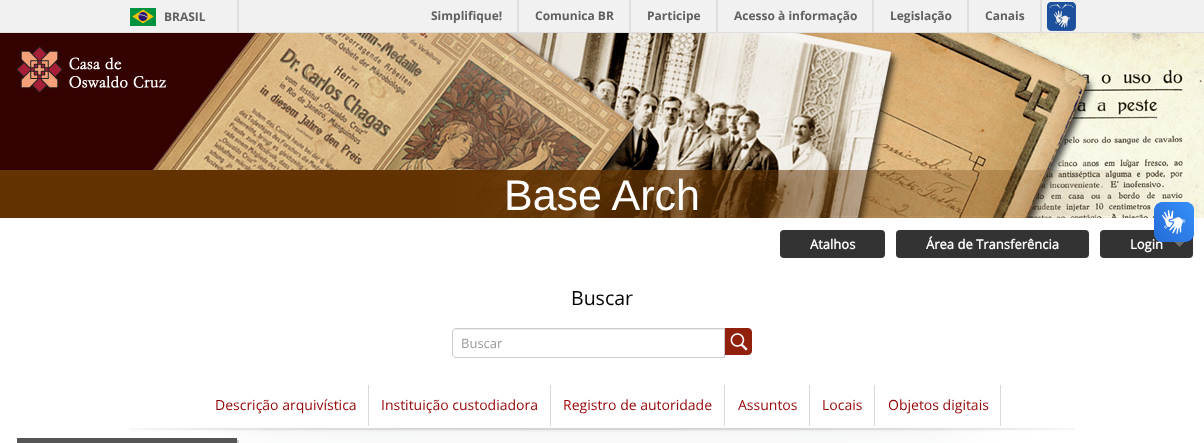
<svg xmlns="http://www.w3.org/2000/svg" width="1204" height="443">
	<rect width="100%" height="100%" fill="#FFFFFF" />
	<rect x="0" y="0" width="1204" height="32" fill="#F1F1F1" />
	<rect x="0" y="32" width="1204" height="1" fill="#DFDFDF" />
	<rect x="237" y="0" width="2" height="32" fill="#DFDFDF" />
	<image x="130" y="8" width="26" height="18" href="assets/img1.png" />
	<text x="164" y="21" font-family="Open Sans" font-size="12" font-weight="700" fill="#606060">BRASIL</text>
	<rect x="517" y="0" width="2" height="32" fill="#DFDFDF" />
	<text x="431" y="20" font-family="Open Sans" font-size="12" font-weight="700" fill="#606060">Simplifique!</text>
	<rect x="629" y="0" width="2" height="32" fill="#DFDFDF" />
	<text x="535" y="20" font-family="Open Sans" font-size="12" font-weight="700" fill="#606060">Comunica BR</text>
	<rect x="716" y="0" width="2" height="32" fill="#DFDFDF" />
	<text x="647" y="20" font-family="Open Sans" font-size="12" font-weight="700" fill="#606060">Participe</text>
	<rect x="872" y="0" width="2" height="32" fill="#DFDFDF" />
	<text x="734" y="20" font-family="Open Sans" font-size="12" font-weight="700" fill="#606060">Acesso à informação</text>
	<rect x="967" y="0" width="2" height="32" fill="#DFDFDF" />
	<text x="890" y="20" font-family="Open Sans" font-size="12" font-weight="700" fill="#606060">Legislação</text>
	<rect x="1040" y="0" width="2" height="32" fill="#DFDFDF" />
	<text x="985" y="20" font-family="Open Sans" font-size="12" font-weight="700" fill="#606060">Canais</text>
	<image x="1047" y="2" width="29" height="29" href="assets/img2.png" />
	<image x="0" y="33" width="1204" height="185" href="assets/img3.png" />
	<text x="504" y="210" font-family="Liberation Sans" font-size="43" fill="#FFFFFF">Base Arch</text>
	<rect x="780" y="230" width="105" height="28" rx="4" fill="#333333" />
	<text x="810" y="249" font-family="'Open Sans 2'" font-size="13" font-weight="700" fill="#FFFFFF">Atalhos</text>
	<rect x="896" y="230" width="193" height="28" rx="4" fill="#333333" />
	<text x="926" y="249" font-family="'Open Sans 2'" font-size="13" font-weight="700" fill="#FFFFFF">Área de Transferência</text>
	<rect x="1100" y="230" width="93" height="28" rx="4" fill="#333333" />
	<image x="1175" y="242" width="9" height="5" href="assets/img4.png" />
	<text x="1130" y="249" font-family="'Open Sans 2'" font-size="13" font-weight="700" fill="#FFFFFF">Login</text>
	<image x="1154" y="202" width="40" height="40" href="assets/img5.png" />
	<image x="1154" y="202" width="40" height="40" href="assets/img6.png" />
	<text x="571" y="305" font-family="Open Sans" font-size="19.5" fill="#000000">Buscar</text>
	<path d="M456 330H724V329H456C454 329 453 330 453 332V333C453 331 454 330 456 330Z" fill="#ECECEC" />
	<path d="M456 328.5H724.5V357.5H456C454 357.5 452.5 356 452.5 354V332C452.5 330 454 328.5 456 328.5Z" fill="none" stroke="#CCCCCC" />
	<text x="461" y="348" font-family="Open Sans" font-size="13" fill="#999999">Buscar</text>
	<path d="M725 328H748C750 328 752 330 752 332V351C752 353 750 355 748 355H725Z" fill="#91200D" />
	<image x="730" y="333" width="18" height="18" href="assets/img7.png" />
	<text x="215" y="410" font-family="Open Sans" font-size="14" fill="#950204">Descrição arquivística</text>
	<rect x="368" y="385" width="1" height="41" fill="#D9D9D9" />
	<text x="381" y="410" font-family="Open Sans" font-size="14" fill="#950204">Instituição custodiadora</text>
	<rect x="550" y="385" width="1" height="41" fill="#D9D9D9" />
	<text x="563" y="410" font-family="Open Sans" font-size="14" fill="#950204">Registro de autoridade</text>
	<rect x="724" y="385" width="1" height="41" fill="#D9D9D9" />
	<text x="738" y="410" font-family="Open Sans" font-size="14" fill="#950204">Assuntos</text>
	<rect x="809" y="385" width="1" height="41" fill="#D9D9D9" />
	<text x="822" y="410" font-family="Open Sans" font-size="14" fill="#950204">Locais</text>
	<rect x="874" y="385" width="1" height="41" fill="#D9D9D9" />
	<text x="888" y="410" font-family="Open Sans" font-size="14" fill="#950204">Objetos digitais</text>
	<rect x="1000" y="385" width="1" height="41" fill="#D9D9D9" />
	<image x="129" y="428" width="946" height="15" href="assets/img8.png" />
	<rect x="19" y="440" width="220" height="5" fill="#191919" fill-opacity="0.2" filter="blur(0.5px)" />
	<rect x="17" y="438" width="220" height="5" fill="#555555" />
</svg>
